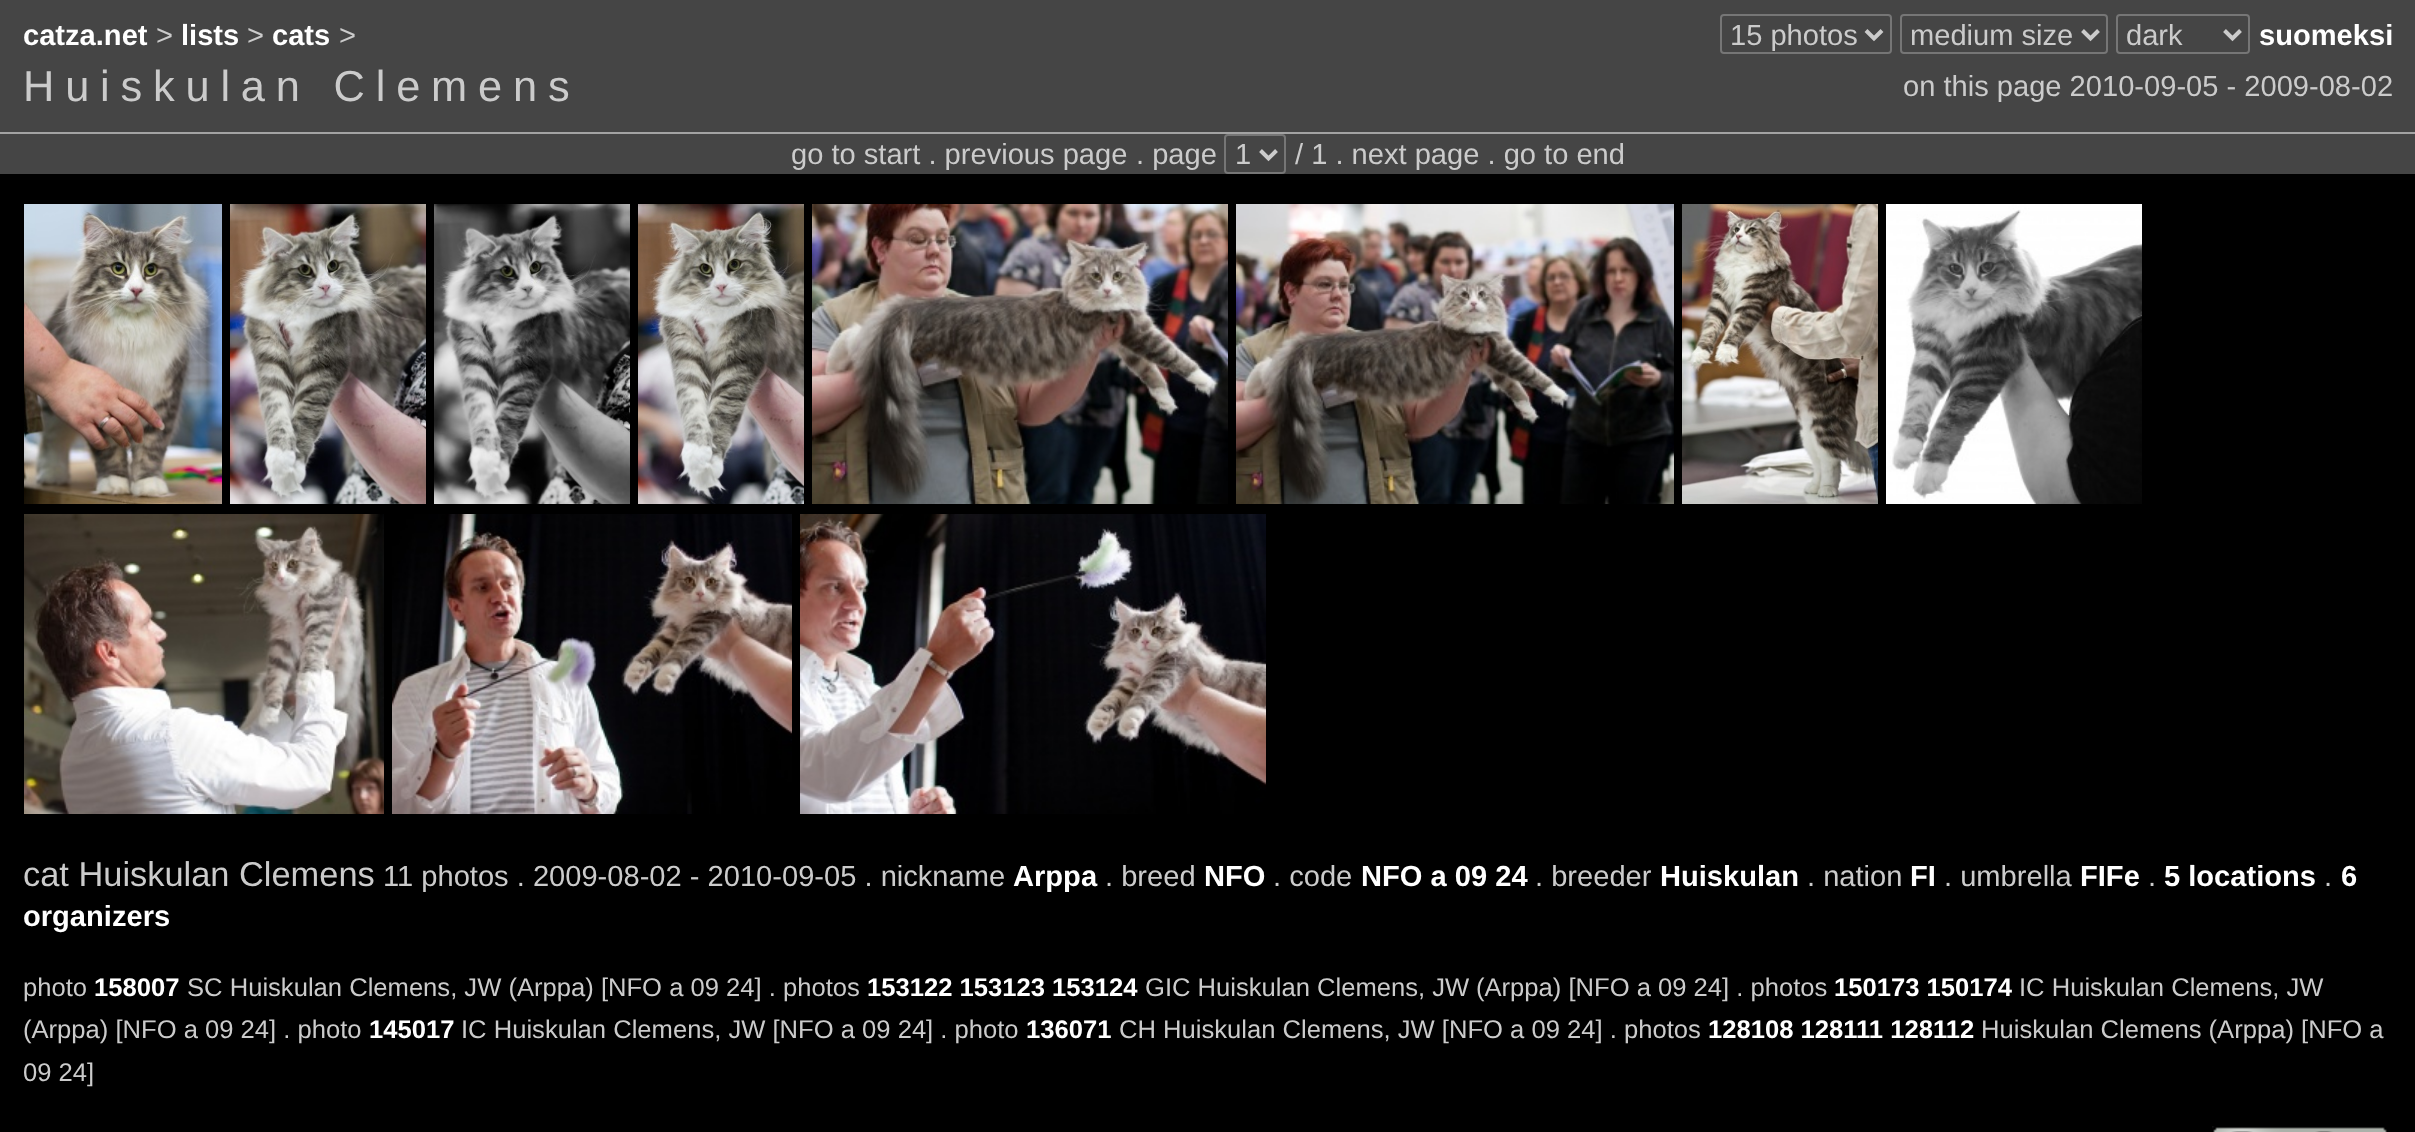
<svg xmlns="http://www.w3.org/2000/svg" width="2415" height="1132">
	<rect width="100%" height="100%" fill="#000000" />
	<rect x="0" y="0" width="2415" height="174" fill="#454545" />
	<text x="23" y="45" font-family="Liberation Sans" font-size="29.1" font-weight="700" fill="#FFFFFF">catza.net</text>
	<text x="156" y="45" font-family="Liberation Sans" font-size="29.1" fill="#CBCBCB">&gt;</text>
	<text x="181" y="45" font-family="Liberation Sans" font-size="29.1" font-weight="700" fill="#FFFFFF">lists</text>
	<text x="247" y="45" font-family="Liberation Sans" font-size="29.1" fill="#CBCBCB">&gt;</text>
	<text x="272" y="45" font-family="Liberation Sans" font-size="29.1" font-weight="700" fill="#FFFFFF">cats</text>
	<text x="339" y="45" font-family="Liberation Sans" font-size="29.1" fill="#CBCBCB">&gt;</text>
	<rect x="1721" y="15" width="170" height="38" rx="3" fill="none" stroke="#767676" stroke-width="2" />
	<path d="M1866 30.5L1874 38.5L1882 30.5" fill="none" stroke="#CBCBCB" stroke-width="4" />
	<text x="1730" y="45" font-family="Liberation Sans" font-size="29.1" fill="#CBCBCB">15 photos</text>
	<rect x="1901" y="15" width="206" height="38" rx="3" fill="none" stroke="#767676" stroke-width="2" />
	<path d="M2082.5 30.5L2090.5 38.5L2098.5 30.5" fill="none" stroke="#CBCBCB" stroke-width="4" />
	<text x="1910" y="45" font-family="Liberation Sans" font-size="29.1" fill="#CBCBCB">medium size</text>
	<rect x="2117" y="15" width="132" height="38" rx="3" fill="none" stroke="#767676" stroke-width="2" />
	<path d="M2224.5 30.5L2232.5 38.5L2240.5 30.5" fill="none" stroke="#CBCBCB" stroke-width="4" />
	<text x="2126" y="45" font-family="Liberation Sans" font-size="29.1" fill="#CBCBCB">dark</text>
	<text x="2259" y="45" font-family="Liberation Sans" font-size="29.1" font-weight="700" fill="#FFFFFF">suomeksi</text>
	<text x="23" y="101" font-family="Liberation Sans" font-size="43.4" letter-spacing="10.8" fill="#CBCBCB">Huiskulan Clemens</text>
	<text x="1903" y="96" font-family="Liberation Sans" font-size="29.1" fill="#CBCBCB">on this page 2010-09-05 - 2009-08-02</text>
	<rect x="0" y="132" width="2415" height="2" fill="#A3A3A3" />
	<g font-family="Liberation Sans" font-size="29.1" fill="#CBCBCB">
		<text x="791" y="164">go to start . previous page</text>
		<text x="1136" y="164">. page</text>
	</g>
	<rect x="1225" y="135" width="60" height="38" rx="3" fill="none" stroke="#767676" stroke-width="2" />
	<path d="M1260.5 150.5L1268.5 158.5L1276.5 150.5" fill="none" stroke="#CBCBCB" stroke-width="4" />
	<g font-family="Liberation Sans" font-size="29.1" fill="#CBCBCB">
		<text x="1235" y="164">1</text>
		<text x="1295" y="164">/ 1 . next page . go to end</text>
	</g>
	<image x="24" y="204" width="198" height="300" href="assets/img1.png" />
	<image x="230" y="204" width="196" height="300" href="assets/img2.png" />
	<image x="434" y="204" width="196" height="300" href="assets/img3.png" />
	<image x="638" y="204" width="166" height="300" href="assets/img4.png" />
	<image x="812" y="204" width="416" height="300" href="assets/img5.png" />
	<image x="1236" y="204" width="438" height="300" href="assets/img6.png" />
	<image x="1682" y="204" width="196" height="300" href="assets/img7.png" />
	<image x="1886" y="204" width="256" height="300" href="assets/img8.png" />
	<image x="24" y="514" width="360" height="300" href="assets/img9.png" />
	<image x="392" y="514" width="400" height="300" href="assets/img10.png" />
	<image x="800" y="514" width="466" height="300" href="assets/img11.png" />
	<text x="23" y="886" font-family="Liberation Sans" font-size="34.4" fill="#CBCBCB">cat Huiskulan Clemens</text>
	<text x="383" y="886" font-family="Liberation Sans" font-size="29.1" fill="#CBCBCB">11 photos . 2009-08-02 - 2010-09-05 . nickname</text>
	<text x="1013" y="886" font-family="Liberation Sans" font-size="29.1" font-weight="700" fill="#FFFFFF">Arppa</text>
	<text x="1105" y="886" font-family="Liberation Sans" font-size="29.1" fill="#CBCBCB">. breed</text>
	<text x="1204" y="886" font-family="Liberation Sans" font-size="29.1" font-weight="700" fill="#FFFFFF">NFO</text>
	<text x="1273" y="886" font-family="Liberation Sans" font-size="29.1" fill="#CBCBCB">. code</text>
	<text x="1361" y="886" font-family="Liberation Sans" font-size="29.1" font-weight="700" fill="#FFFFFF">NFO a 09 24</text>
	<text x="1535" y="886" font-family="Liberation Sans" font-size="29.1" fill="#CBCBCB">. breeder</text>
	<text x="1660" y="886" font-family="Liberation Sans" font-size="29.1" font-weight="700" fill="#FFFFFF">Huiskulan</text>
	<text x="1807" y="886" font-family="Liberation Sans" font-size="29.1" fill="#CBCBCB">. nation</text>
	<text x="1910" y="886" font-family="Liberation Sans" font-size="29.1" font-weight="700" fill="#FFFFFF">FI</text>
	<text x="1944" y="886" font-family="Liberation Sans" font-size="29.1" fill="#CBCBCB">. umbrella</text>
	<text x="2080" y="886" font-family="Liberation Sans" font-size="29.1" font-weight="700" fill="#FFFFFF">FIFe</text>
	<text x="2148" y="886" font-family="Liberation Sans" font-size="29.1" fill="#CBCBCB">.</text>
	<text x="2164" y="886" font-family="Liberation Sans" font-size="29.1" font-weight="700" fill="#FFFFFF">5 locations</text>
	<text x="2324" y="886" font-family="Liberation Sans" font-size="29.1" fill="#CBCBCB">.</text>
	<g font-family="Liberation Sans" font-size="29.1" font-weight="700" fill="#FFFFFF">
		<text x="2341" y="886">6</text>
		<text x="23" y="926">organizers</text>
	</g>
	<text x="23" y="996" font-family="Liberation Sans" font-size="25.6" fill="#CBCBCB">photo</text>
	<text x="94" y="996" font-family="Liberation Sans" font-size="25.6" font-weight="700" fill="#FFFFFF">158007</text>
	<text x="187" y="996" font-family="Liberation Sans" font-size="25.6" fill="#CBCBCB">SC Huiskulan Clemens, JW (Arppa) [NFO a 09 24] . photos</text>
	<text x="867" y="996" font-family="Liberation Sans" font-size="25.6" font-weight="700" fill="#FFFFFF">153122 153123 153124</text>
	<g font-family="Liberation Sans" font-size="25.6" fill="#CBCBCB">
		<text x="1145" y="996">GIC Huiskulan Clemens, JW</text>
		<text x="1476" y="996">(Arppa) [NFO a 09 24] . photos</text>
	</g>
	<text x="1834" y="996" font-family="Liberation Sans" font-size="25.6" font-weight="700" fill="#FFFFFF">150173 150174</text>
	<g font-family="Liberation Sans" font-size="25.6" fill="#CBCBCB">
		<text x="2019" y="996">IC Huiskulan Clemens, JW</text>
		<text x="23" y="1038">(Arppa) [NFO a 09 24] . photo</text>
	</g>
	<text x="369" y="1038" font-family="Liberation Sans" font-size="25.6" font-weight="700" fill="#FFFFFF">145017</text>
	<text x="461" y="1038" font-family="Liberation Sans" font-size="25.6" fill="#CBCBCB">IC Huiskulan Clemens, JW [NFO a 09 24] . photo</text>
	<text x="1026" y="1038" font-family="Liberation Sans" font-size="25.6" font-weight="700" fill="#FFFFFF">136071</text>
	<text x="1119" y="1038" font-family="Liberation Sans" font-size="25.6" fill="#CBCBCB">CH Huiskulan Clemens, JW [NFO a 09 24] . photos</text>
	<text x="1708" y="1038" font-family="Liberation Sans" font-size="25.6" font-weight="700" fill="#FFFFFF">128108 128111 128112</text>
	<g font-family="Liberation Sans" font-size="25.6" fill="#CBCBCB">
		<text x="1981" y="1038">Huiskulan Clemens (Arppa) [NFO a</text>
		<text x="23" y="1081">09 24]</text>
	</g>
	<image x="2212" y="1126" width="175" height="6" href="assets/img12.png" />
</svg>
